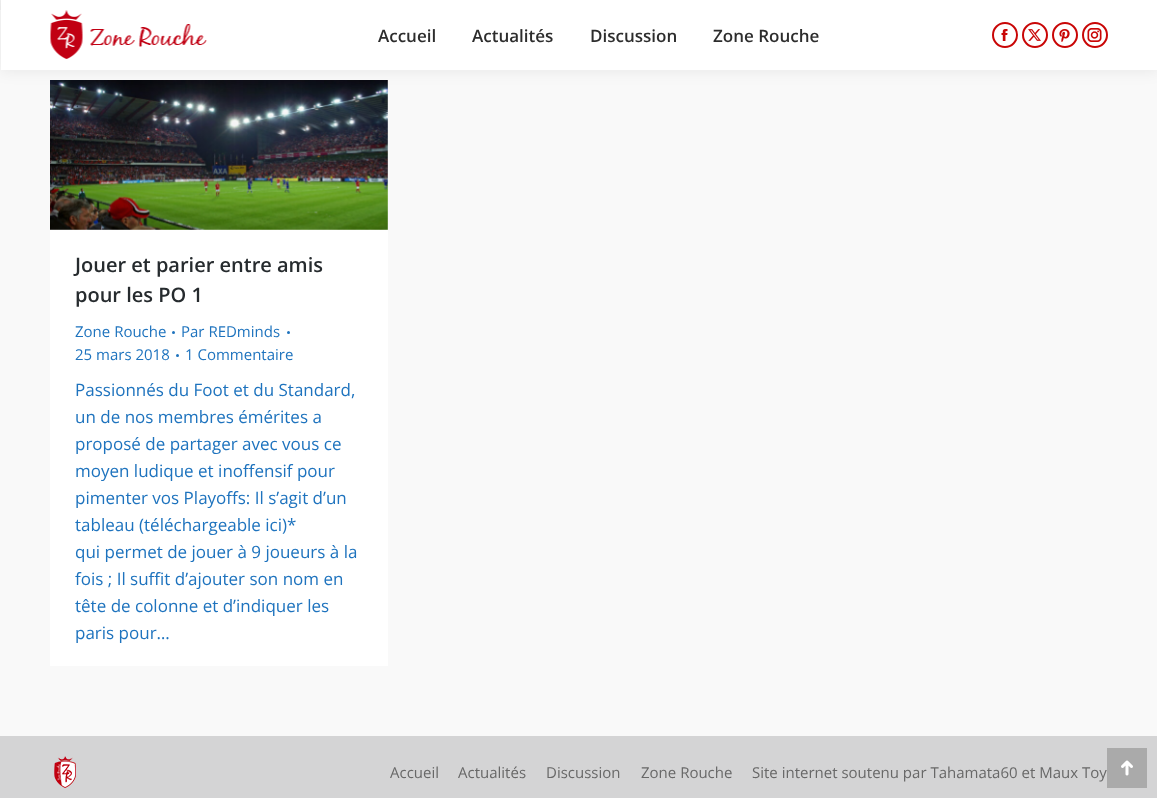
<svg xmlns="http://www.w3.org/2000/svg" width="1157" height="798">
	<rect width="100%" height="100%" fill="#F9F9F9" />
	<rect x="0" y="0" width="1" height="10" fill="#F1F1F1" />
	<rect x="50" y="80" width="338" height="586" fill="#FFFFFF" />
	<image x="50" y="80" width="338" height="150" href="assets/img6.png" />
	<rect x="0" y="-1" width="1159" height="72" fill="#000000" fill-opacity="0.07" filter="blur(7.5px)" />
	<rect x="1" y="0" width="1156" height="70" fill="#FFFFFF" />
	<image x="50" y="10" width="157" height="49" href="assets/img1.png" />
	<g font-family="Open Sans" font-size="17" font-weight="600" fill="#2D2D2D">
		<text x="378" y="42">Accueil</text>
		<text x="472" y="42">Actualités</text>
		<text x="590" y="42">Discussion</text>
		<text x="713" y="42">Zone Rouche</text>
	</g>
	<circle cx="1005" cy="35" r="12" fill="none" stroke="#C90606" stroke-width="2" />
	<image x="1001" y="29" width="7" height="12" href="assets/img2.png" />
	<circle cx="1035" cy="35" r="12" fill="none" stroke="#C90606" stroke-width="2" />
	<image x="1028" y="29" width="13" height="12" href="assets/img3.png" />
	<circle cx="1065" cy="35" r="12" fill="none" stroke="#C90606" stroke-width="2" />
	<image x="1059" y="29" width="11" height="13" href="assets/img4.png" />
	<circle cx="1095" cy="35" r="12" fill="none" stroke="#C90606" stroke-width="2" />
	<image x="1087" y="28" width="15" height="14" href="assets/img5.png" />
	<g font-family="Open Sans" font-size="20" font-weight="600" fill="#262B2E">
		<text x="75" y="272">Jouer et parier entre amis</text>
		<text x="75" y="302">pour les PO 1</text>
	</g>
	<text x="75" y="337" font-family="Open Sans" font-size="15" fill="#1E73BE">Zone Rouche</text>
	<circle cx="173.5" cy="332.5" r="1.5" fill="#1E73BE" />
	<text x="181" y="337" font-family="Open Sans" font-size="15" fill="#1E73BE">Par REDminds</text>
	<circle cx="288.5" cy="332.5" r="1.5" fill="#1E73BE" />
	<text x="75" y="360" font-family="Open Sans" font-size="15" fill="#1E73BE">25 mars 2018</text>
	<circle cx="177.5" cy="355.5" r="1.5" fill="#1E73BE" />
	<text x="185" y="360" font-family="Open Sans" font-size="15" fill="#1E73BE">1 Commentaire</text>
	<g font-family="Open Sans" font-size="17" fill="#1E73BE">
		<text x="75" y="396">Passionnés du Foot et du Standard,</text>
		<text x="75" y="423">un de nos membres émérites a</text>
		<text x="75" y="450">proposé de partager avec vous ce</text>
		<text x="75" y="477">moyen ludique et inoffensif pour</text>
		<text x="75" y="504">pimenter vos Playoffs: Il s’agit d’un</text>
		<text x="75" y="531">tableau (téléchargeable ici)*</text>
		<text x="75" y="558">qui permet de jouer à 9 joueurs à la</text>
		<text x="75" y="585">fois ; Il suffit d’ajouter son nom en</text>
		<text x="75" y="612">tête de colonne et d’indiquer les</text>
		<text x="75" y="639">paris pour…</text>
	</g>
	<rect x="0" y="736" width="1157" height="62" fill="#D4D4D5" />
	<image x="54" y="756" width="22" height="32" href="assets/img7.png" />
	<g font-family="Open Sans" font-size="15" fill="#686868">
		<text x="390" y="778">Accueil</text>
		<text x="458" y="778">Actualités</text>
		<text x="546" y="778">Discussion</text>
		<text x="641" y="778">Zone Rouche</text>
		<text x="752" y="778">Site internet soutenu par Tahamata60 et Maux Toy</text>
	</g>
	<rect x="1107" y="748" width="40" height="40" fill="#AAAAAA" />
	<image x="1121" y="760" width="12" height="16" href="assets/img8.png" />
</svg>
